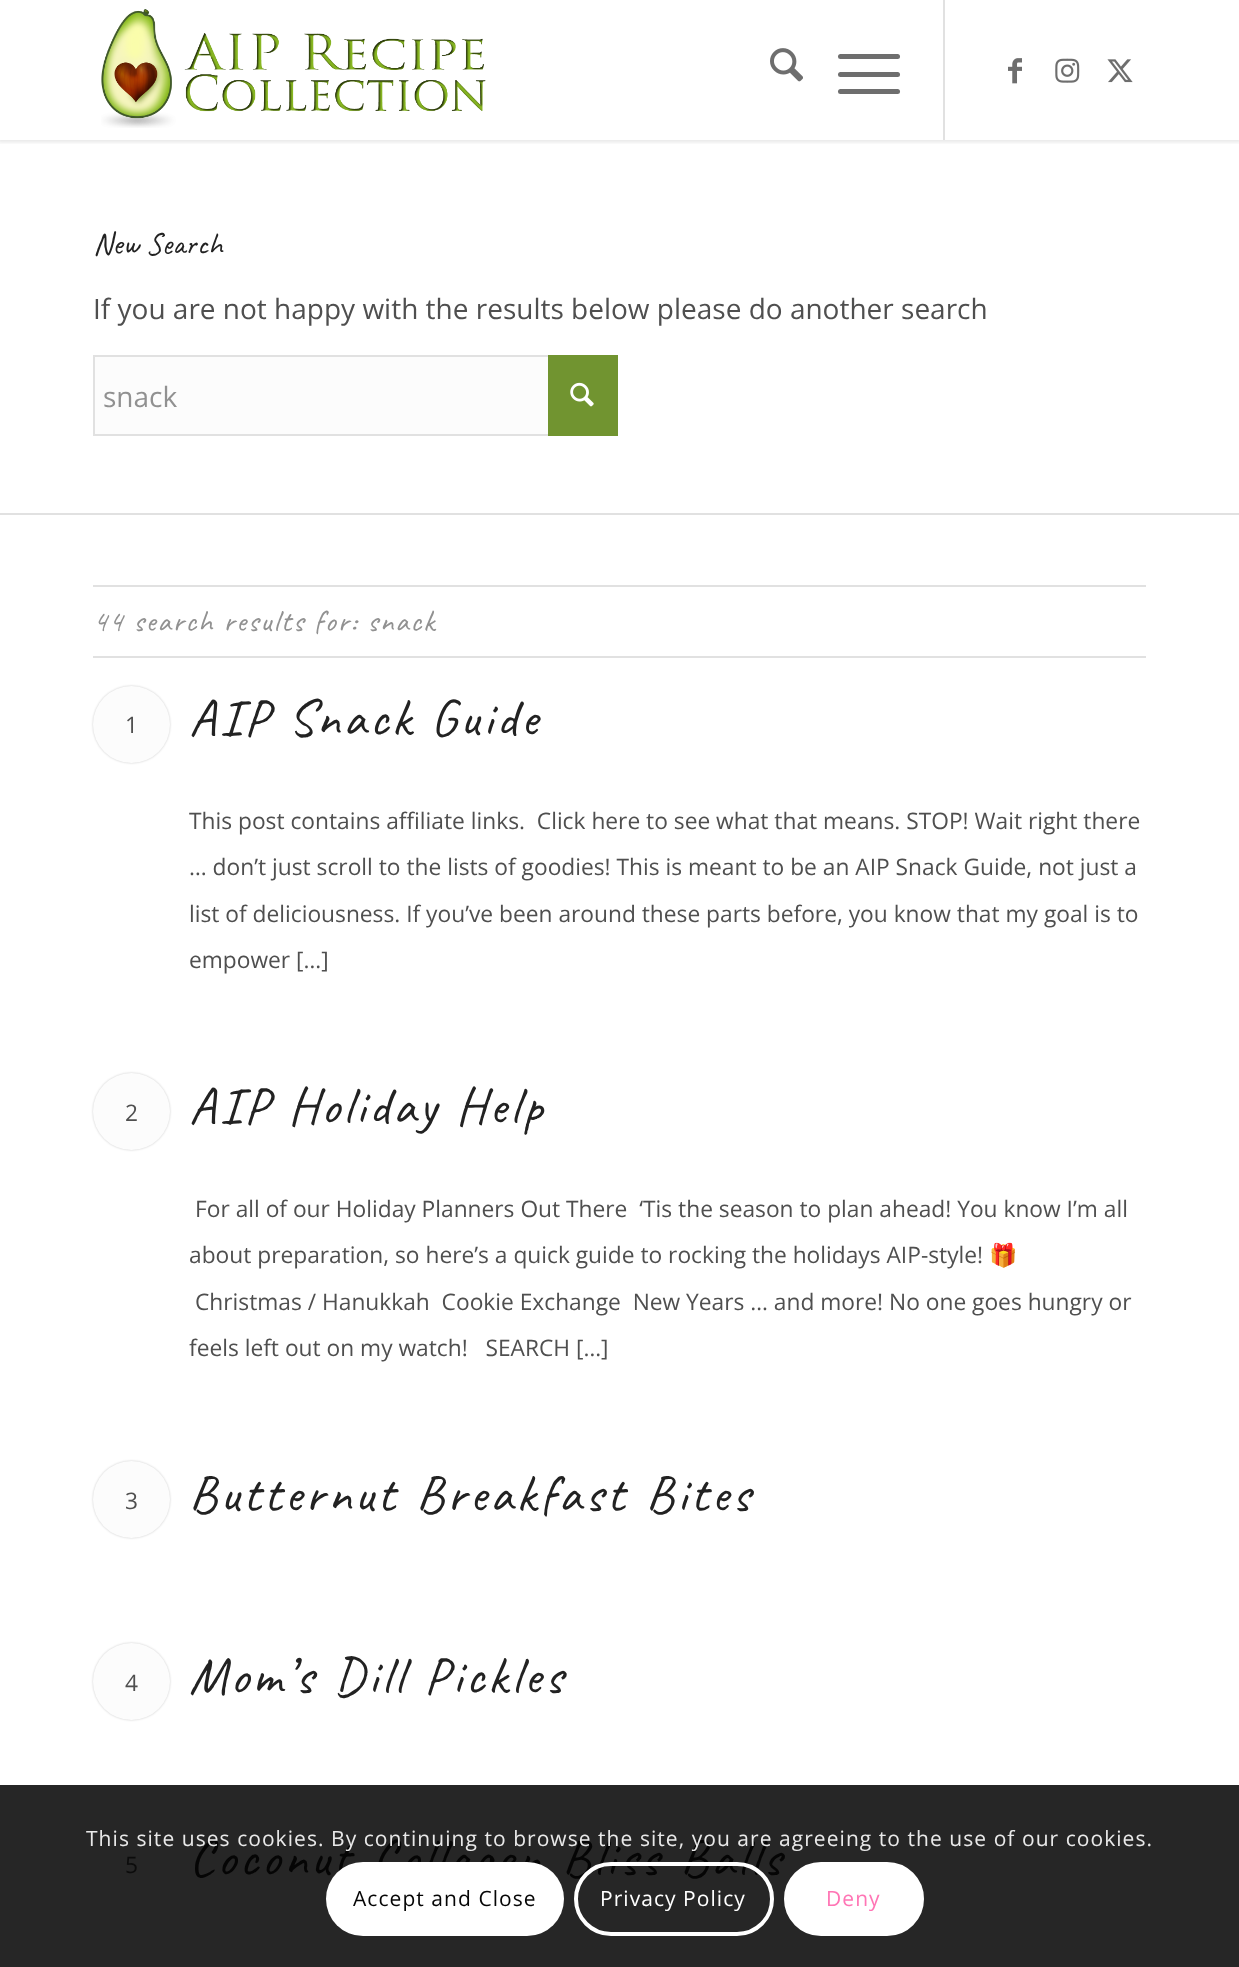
<svg xmlns="http://www.w3.org/2000/svg" width="1239" height="1967">
	<defs>
		<clipPath id="clip1"><rect x="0" y="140" width="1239" height="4" /></clipPath>
	</defs>
	<rect width="100%" height="100%" fill="#FFFFFF" />
	<rect x="0" y="1785" width="1239" height="182" fill="#262626" />
	<g clip-path="url(#clip1)">
		<rect x="-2" y="-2" width="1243" height="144" fill="#000000" fill-opacity="0.1" filter="blur(2px)" />
	</g>
	<image x="101" y="9" width="385" height="119" href="assets/img1.png" />
	<rect x="943" y="0" width="2" height="140" fill="#E1E1E1" />
	<image x="770" y="48" width="33" height="34" href="assets/img2.png" />
	<rect x="838" y="72" width="62" height="5" rx="2.5" fill="#6E6E6E" />
	<rect x="838" y="54" width="62" height="5" rx="2.5" fill="#6E6E6E" />
	<rect x="838" y="89" width="62" height="5" rx="2.5" fill="#6E6E6E" />
	<image x="1008" y="58" width="14" height="26" href="assets/img3.png" />
	<image x="1055" y="58" width="25" height="25" href="assets/img4.png" />
	<image x="1107" y="59" width="26" height="24" href="assets/img5.png" />
	<text x="93" y="254" font-family="Caveat" font-size="31.5" fill="#222222">New Search</text>
	<text x="93" y="319" font-family="Open Sans" font-size="28" fill="#4F4F4F">If you are not happy with the results below please do another search</text>
	<rect x="95" y="357" width="453" height="77" fill="#FCFCFC" />
	<rect x="94" y="356" width="523" height="79" fill="none" stroke="#E1E1E1" stroke-width="2" />
	<rect x="548" y="355" width="70" height="81" fill="#719430" />
	<text x="103" y="407" font-family="Open Sans" font-size="28" fill="#919191">snack</text>
	<image x="570" y="382" width="24" height="25" href="assets/img6.png" />
	<rect x="0" y="513" width="1239" height="2" fill="#E1E1E1" />
	<rect x="93" y="585" width="1053" height="2" fill="#E1E1E1" />
	<rect x="93" y="656" width="1053" height="2" fill="#E1E1E1" />
	<text x="93" y="631" font-family="Caveat" font-size="30.75" letter-spacing="1.75" fill="#919191">44 search results for: snack</text>
	<rect x="93" y="686" width="77" height="77" rx="38.5" fill="#000000" fill-opacity="0.2" filter="blur(1px)" />
	<circle cx="131.5" cy="724.5" r="38.5" fill="#FCFCFC" />
	<text x="125" y="733" font-family="Open Sans" font-size="22.75" fill="#4F4F4F">1</text>
	<text x="189" y="735" font-family="Caveat" font-size="52.5" letter-spacing="3.5" fill="#222222">AIP Snack Guide</text>
	<g font-family="Open Sans" font-size="22.75" fill="#4F4F4F">
		<text x="189" y="829" xml:space="preserve">This post contains affiliate links.  Click here to see what that means. STOP! Wait right there</text>
		<text x="189" y="875">… don’t just scroll to the lists of goodies! This is meant to be an AIP Snack Guide, not just a</text>
		<text x="189" y="922">list of deliciousness. If you’ve been around these parts before, you know that my goal is to</text>
		<text x="189" y="968">empower […]</text>
	</g>
	<rect x="93" y="1073" width="77" height="77" rx="38.5" fill="#000000" fill-opacity="0.2" filter="blur(1px)" />
	<circle cx="131.5" cy="1111.5" r="38.5" fill="#FCFCFC" />
	<text x="125" y="1121" font-family="Open Sans" font-size="22.75" fill="#4F4F4F">2</text>
	<text x="189" y="1123" font-family="Caveat" font-size="52.5" letter-spacing="3.5" fill="#222222">AIP Holiday Help</text>
	<g font-family="Open Sans" font-size="22.75" fill="#4F4F4F">
		<text x="195" y="1217" xml:space="preserve">For all of our Holiday Planners Out There  ‘Tis the season to plan ahead! You know I’m all</text>
		<text x="189" y="1263">about preparation, so here’s a quick guide to rocking the holidays AIP-style!</text>
	</g>
	<text x="989" y="1263" font-family="Noto Color Emoji" font-size="22.75" fill="#4F4F4F">🎁</text>
	<g font-family="Open Sans" font-size="22.75" fill="#4F4F4F">
		<text x="195" y="1310" xml:space="preserve">Christmas / Hanukkah  Cookie Exchange  New Years … and more! No one goes hungry or</text>
		<text x="189" y="1356" xml:space="preserve">feels left out on my watch!   SEARCH […]</text>
	</g>
	<rect x="93" y="1461" width="77" height="77" rx="38.5" fill="#000000" fill-opacity="0.2" filter="blur(1px)" />
	<circle cx="131.5" cy="1499.5" r="38.5" fill="#FCFCFC" />
	<text x="125" y="1509" font-family="Open Sans" font-size="22.75" fill="#4F4F4F">3</text>
	<text x="189" y="1511" word-spacing="2" font-family="Caveat" font-size="52.5" letter-spacing="3.5" fill="#222222">Butternut Breakfast Bites</text>
	<rect x="93" y="1643" width="77" height="77" rx="38.5" fill="#000000" fill-opacity="0.2" filter="blur(1px)" />
	<circle cx="131.5" cy="1681.5" r="38.5" fill="#FCFCFC" />
	<text x="125" y="1691" font-family="Open Sans" font-size="22.75" fill="#4F4F4F">4</text>
	<text x="189" y="1693" word-spacing="1" font-family="Caveat" font-size="52.5" letter-spacing="3.5" fill="#222222">Mom’s Dill Pickles</text>
	<text x="125" y="1873" font-family="Open Sans" font-size="22.75" fill="#0C0C0C">5</text>
	<text x="189" y="1875" word-spacing="2" font-family="Caveat" font-size="52.5" letter-spacing="3.5" fill="#050505">Coconut Collagen Bliss Balls</text>
	<text x="86" y="1846" font-family="Open Sans" font-size="21" letter-spacing="1.05" fill="#E9E9E9">This site uses cookies. By continuing to browse the site, you are agreeing to the use of our cookies.</text>
	<rect x="326" y="1862" width="238" height="74" rx="37" fill="#FFFFFF" />
	<text x="353" y="1906" font-family="Open Sans" font-size="21" letter-spacing="1.05" fill="#050505">Accept and Close</text>
	<rect x="576" y="1864" width="196" height="70" rx="35" fill="none" stroke="#FFFFFF" stroke-width="4" />
	<text x="600" y="1906" font-family="Open Sans" font-size="21" letter-spacing="1.05" fill="#FFFFFF">Privacy Policy</text>
	<rect x="786" y="1864" width="136" height="70" rx="35" fill="#FFFFFF" stroke="#FFFFFF" stroke-width="4" />
	<text x="826" y="1906" font-family="Open Sans" font-size="21" letter-spacing="1.05" fill="#FF75B5">Deny</text>
</svg>
